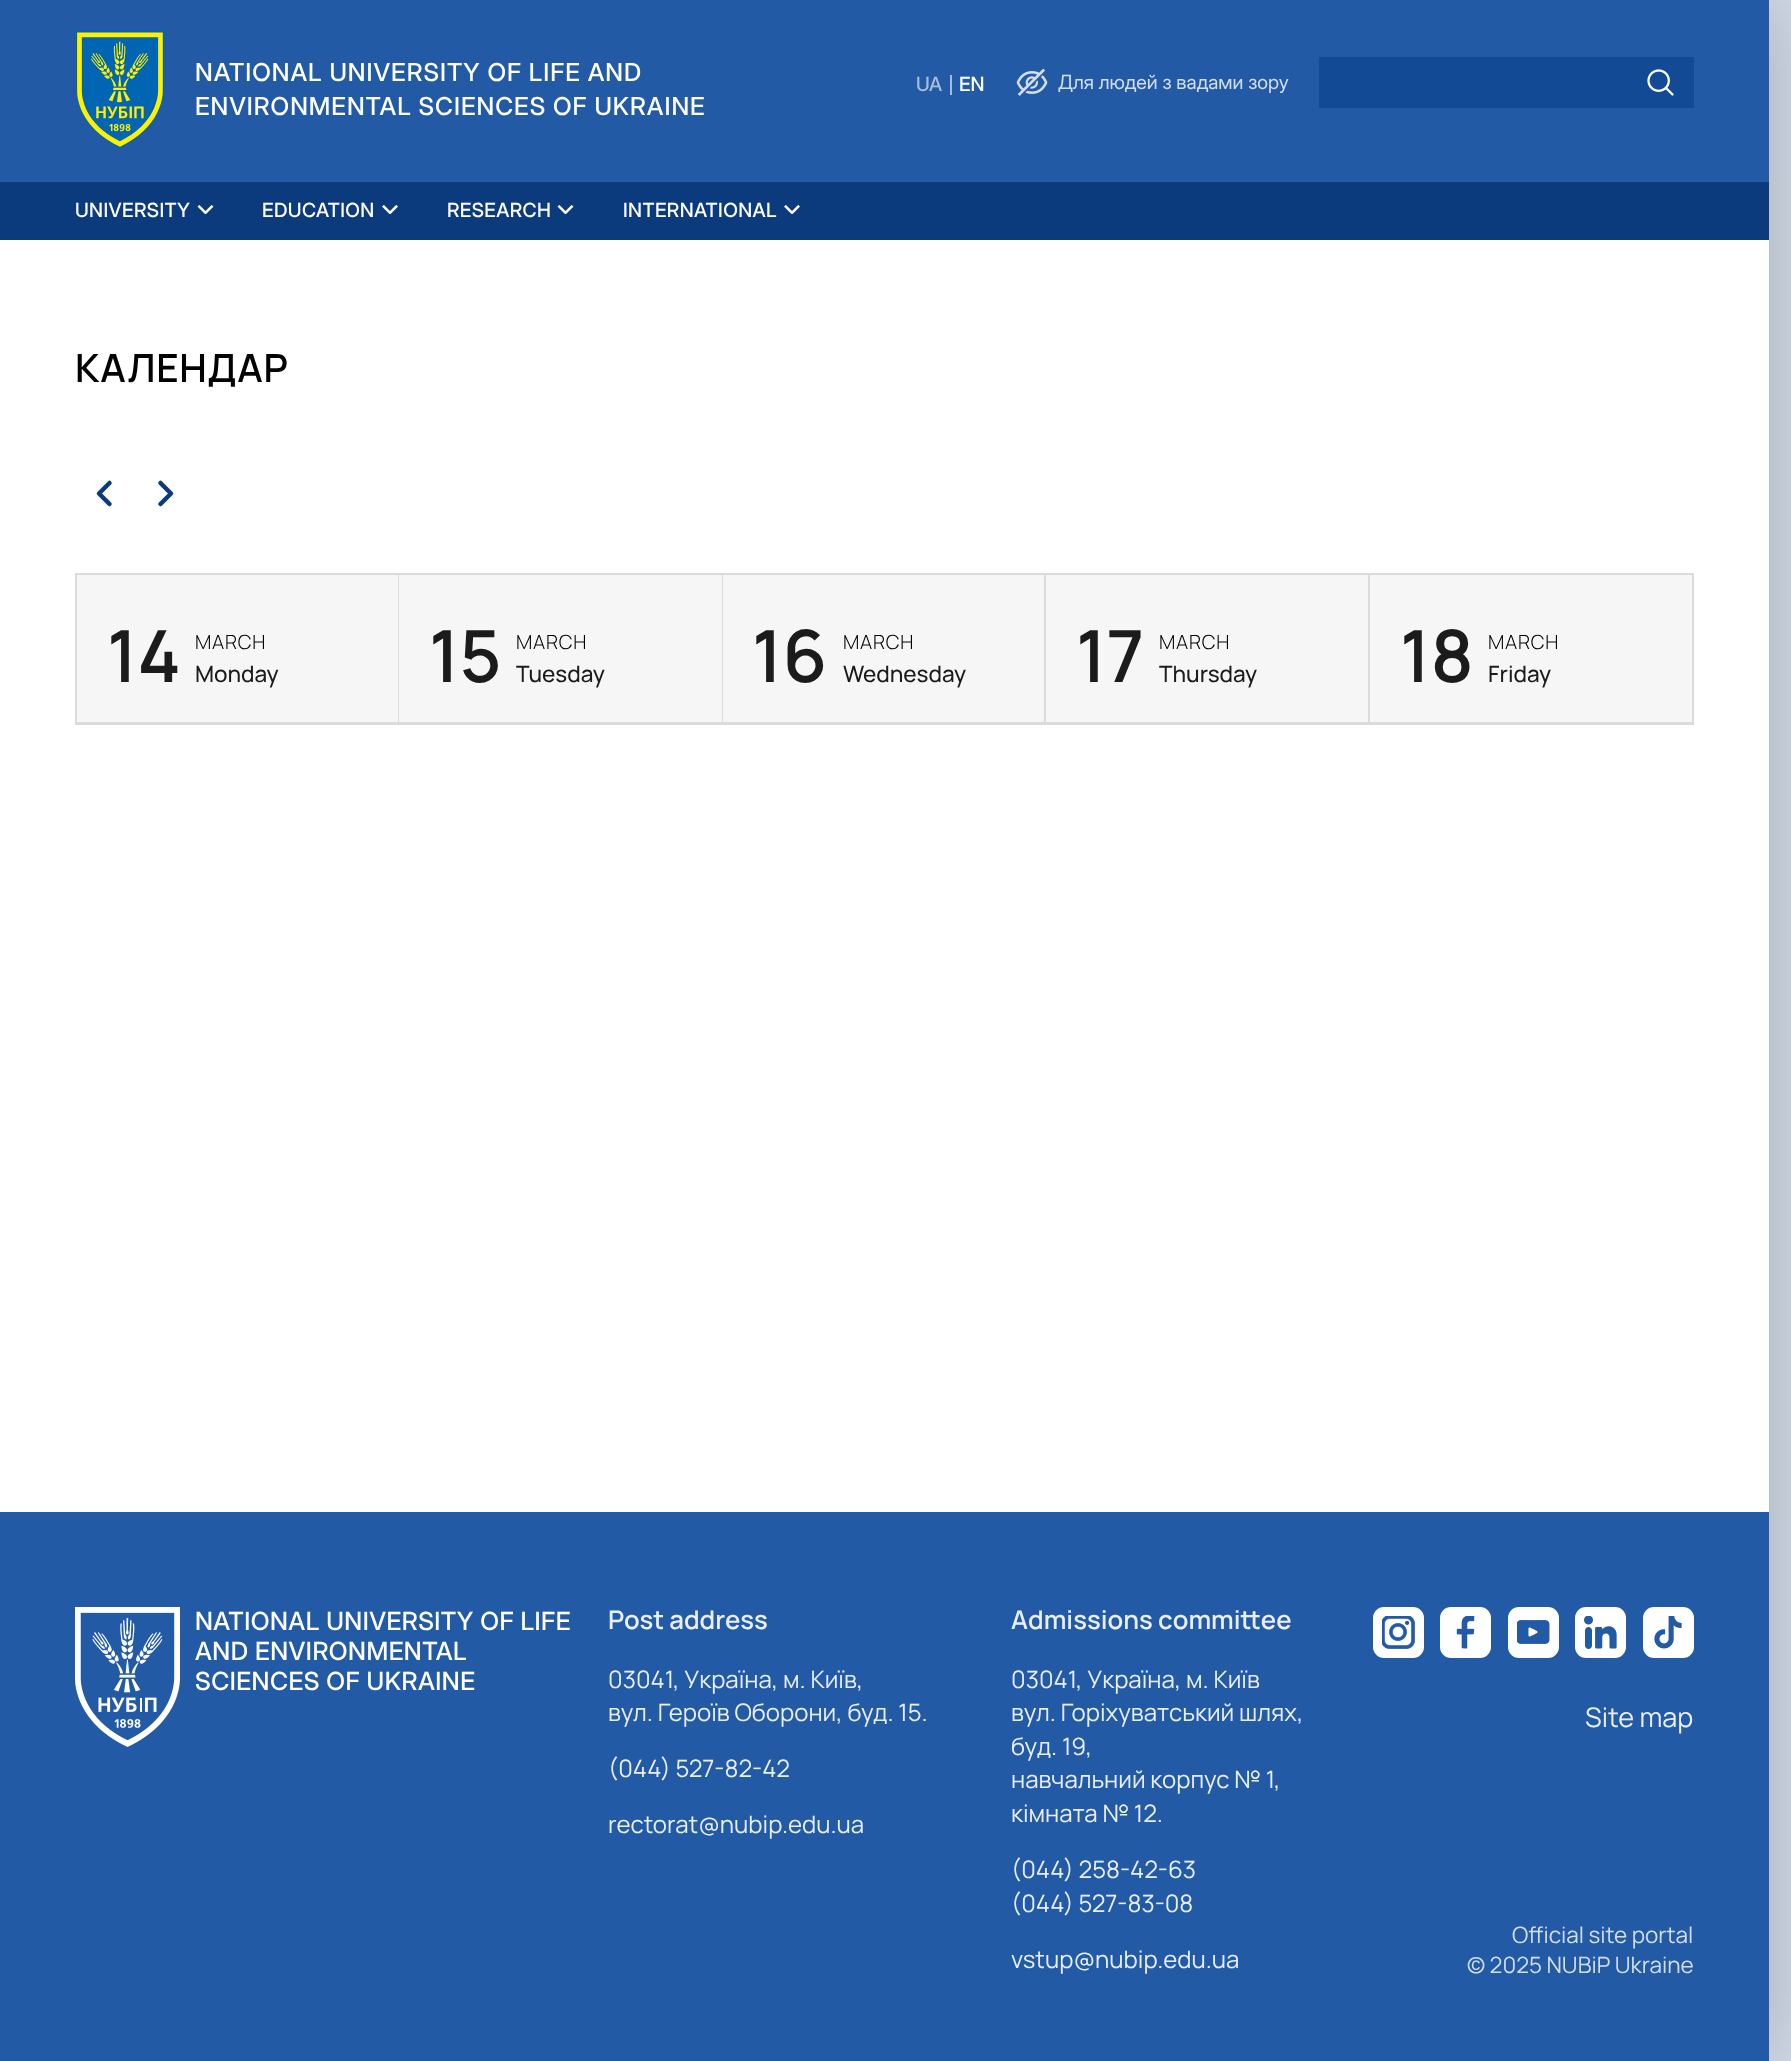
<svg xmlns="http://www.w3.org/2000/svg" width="1791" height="2061">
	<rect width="100%" height="100%" fill="#D0D9E5" />
	<rect x="0" y="0" width="1769" height="2061" fill="#000000" fill-opacity="0.2" filter="blur(37.5px)" />
	<rect x="0" y="0" width="1769" height="182" fill="#235AA6" />
	<image x="75" y="30" width="90" height="119" href="assets/img1.png" />
	<g font-family="Inter Display" font-size="24.75" font-weight="500" letter-spacing="1" fill="#FFFFFF">
		<text x="195" y="81">NATIONAL UNIVERSITY OF LIFE AND</text>
		<text x="195" y="115">ENVIRONMENTAL SCIENCES OF UKRAINE</text>
	</g>
	<text x="916" y="91" font-family="Inter Display" font-size="19.5" font-weight="500" fill="#A7BDDB">UA</text>
	<rect x="950" y="75" width="2" height="20" fill="#A7BDDB" />
	<text x="959" y="91" font-family="Inter Display" font-size="19.5" font-weight="500" fill="#FFFFFF">EN</text>
	<image x="1016" y="68" width="32" height="28" href="assets/img2.png" />
	<text x="1058" y="89" font-family="Inter Display" font-size="19.5" fill="#D3DEED">Для людей з вадами зору</text>
	<rect x="1319" y="57" width="375" height="51" fill="#134A96" />
	<image x="1647" y="69" width="27" height="27" href="assets/img3.png" />
	<rect x="0" y="240" width="1769" height="1272" fill="#FFFFFF" />
	<rect x="0" y="182" width="1769" height="58" fill="#0C3B7D" />
	<text x="75" y="217" font-family="Inter Display" font-size="19.5" font-weight="500" letter-spacing="0.4" fill="#FFFFFF">UNIVERSITY</text>
	<image x="197" y="205" width="17" height="9" href="assets/img4.png" />
	<text x="262" y="217" font-family="Inter Display" font-size="19.5" font-weight="500" letter-spacing="0.4" fill="#FFFFFF">EDUCATION</text>
	<image x="382" y="205" width="16" height="9" href="assets/img5.png" />
	<text x="447" y="217" font-family="Inter Display" font-size="19.5" font-weight="500" letter-spacing="0.4" fill="#FFFFFF">RESEARCH</text>
	<image x="557" y="205" width="17" height="9" href="assets/img4.png" />
	<text x="623" y="217" font-family="Inter Display" font-size="19.5" font-weight="500" letter-spacing="0.4" fill="#FFFFFF">INTERNATIONAL</text>
	<image x="784" y="205" width="16" height="9" href="assets/img5.png" />
	<text x="75" y="382" font-family="Manrope" font-size="38.75" font-weight="600" letter-spacing="0.75" fill="#000000">КАЛЕНДАР</text>
	<path d="M109.5 504L99 493.5L109.5 483" fill="none" stroke="#0C3B7D" stroke-width="4.5" stroke-linecap="round" stroke-linejoin="round" />
	<path d="M160.5 483L171 493.5L160.5 504" fill="none" stroke="#0C3B7D" stroke-width="4.5" stroke-linecap="round" stroke-linejoin="round" />
	<rect x="75" y="723" width="1619" height="2" fill="#DBDBDB" />
	<rect x="75" y="573" width="1619" height="2" fill="#DBDBDB" />
	<rect x="398" y="573" width="1" height="150" fill="#DBDBDB" />
	<rect x="75" y="573" width="2" height="150" fill="#DBDBDB" />
	<rect x="77" y="575" width="321" height="147" fill="#F6F6F6" />
	<rect x="77" y="722" width="321" height="1" fill="#DBDBDB" />
	<text x="107" y="682" font-family="Manrope" font-size="72" font-weight="600" fill="#1B1B1B">14</text>
	<text x="195" y="649" font-family="Manrope" font-size="19.5" font-weight="300" letter-spacing="0.75" fill="#000000">MARCH</text>
	<text x="195" y="682" font-family="Manrope" font-size="22.5" font-weight="500" fill="#1B1B1B">Monday</text>
	<rect x="722" y="573" width="1" height="150" fill="#DBDBDB" />
	<rect x="399" y="575" width="323" height="147" fill="#F6F6F6" />
	<rect x="399" y="722" width="323" height="1" fill="#DBDBDB" />
	<text x="429" y="682" font-family="Manrope" font-size="72" font-weight="600" fill="#1B1B1B">15</text>
	<text x="516" y="649" font-family="Manrope" font-size="19.5" font-weight="300" letter-spacing="0.75" fill="#000000">MARCH</text>
	<text x="516" y="682" font-family="Manrope" font-size="22.5" font-weight="500" fill="#1B1B1B">Tuesday</text>
	<rect x="1044" y="573" width="2" height="150" fill="#DBDBDB" />
	<rect x="723" y="575" width="321" height="147" fill="#F6F6F6" />
	<rect x="723" y="722" width="321" height="1" fill="#DBDBDB" />
	<text x="752" y="682" font-family="Manrope" font-size="72" font-weight="600" fill="#1B1B1B">16</text>
	<text x="843" y="649" font-family="Manrope" font-size="19.5" font-weight="300" letter-spacing="0.75" fill="#000000">MARCH</text>
	<text x="843" y="682" font-family="Manrope" font-size="22.5" font-weight="500" fill="#1B1B1B">Wednesday</text>
	<rect x="1368" y="573" width="2" height="150" fill="#DBDBDB" />
	<rect x="1046" y="575" width="322" height="147" fill="#F6F6F6" />
	<rect x="1046" y="722" width="322" height="1" fill="#DBDBDB" />
	<text x="1076" y="682" font-family="Manrope" font-size="72" font-weight="600" fill="#1B1B1B">17</text>
	<text x="1159" y="649" font-family="Manrope" font-size="19.5" font-weight="300" letter-spacing="0.75" fill="#000000">MARCH</text>
	<text x="1159" y="682" font-family="Manrope" font-size="22.5" font-weight="500" fill="#1B1B1B">Thursday</text>
	<rect x="1692" y="573" width="2" height="150" fill="#DBDBDB" />
	<rect x="1370" y="575" width="322" height="147" fill="#F6F6F6" />
	<rect x="1370" y="722" width="322" height="1" fill="#DBDBDB" />
	<text x="1400" y="682" font-family="Manrope" font-size="72" font-weight="600" fill="#1B1B1B">18</text>
	<text x="1488" y="649" font-family="Manrope" font-size="19.5" font-weight="300" letter-spacing="0.75" fill="#000000">MARCH</text>
	<text x="1488" y="682" font-family="Manrope" font-size="22.5" font-weight="500" fill="#1B1B1B">Friday</text>
	<rect x="0" y="1512" width="1769" height="549" fill="#235AA6" />
	<image x="75" y="1607" width="105" height="140" href="assets/img6.png" />
	<g font-family="Inter Display" font-size="25" font-weight="500" letter-spacing="0.5" fill="#FFFFFF">
		<text x="195" y="1630">NATIONAL UNIVERSITY OF LIFE</text>
		<text x="195" y="1660">AND ENVIRONMENTAL</text>
		<text x="195" y="1690">SCIENCES OF UKRAINE</text>
	</g>
	<text x="608" y="1629" font-family="Manrope" font-size="25.75" font-weight="600" fill="#E9EFF6">Post address</text>
	<g font-family="Manrope" font-size="24" fill="#E9EFF6">
		<text x="608" y="1688">03041, Україна, м. Київ,</text>
		<text x="608" y="1721">вул. Героїв Оборони, буд. 15.</text>
		<text x="608" y="1777">(044) 527-82-42</text>
		<text x="608" y="1833">rectorat@nubip.edu.ua</text>
	</g>
	<text x="1011" y="1629" font-family="Manrope" font-size="25.75" font-weight="600" fill="#E9EFF6">Admissions сommittee</text>
	<g font-family="Manrope" font-size="24" fill="#E9EFF6">
		<text x="1011" y="1688">03041, Україна, м. Київ</text>
		<text x="1011" y="1721">вул. Горіхуватський шлях,</text>
		<text x="1011" y="1755">буд. 19,</text>
		<text x="1011" y="1788">навчальний корпус № 1,</text>
		<text x="1011" y="1822">кімната № 12.</text>
		<text x="1011" y="1878">(044) 258-42-63</text>
		<text x="1011" y="1912">(044) 527-83-08</text>
		<text x="1011" y="1968">vstup@nubip.edu.ua</text>
	</g>
	<rect x="1373" y="1607" width="51" height="51" rx="11" fill="#FFFFFF" />
	<image x="1382" y="1616" width="33" height="33" href="assets/img7.png" />
	<rect x="1440" y="1607" width="51" height="51" rx="11" fill="#FFFFFF" />
	<image x="1456" y="1616" width="19" height="33" href="assets/img8.png" />
	<rect x="1508" y="1607" width="51" height="51" rx="11" fill="#FFFFFF" />
	<image x="1517" y="1620" width="33" height="24" href="assets/img9.png" />
	<rect x="1575" y="1607" width="51" height="51" rx="11" fill="#FFFFFF" />
	<image x="1584" y="1616" width="33" height="33" href="assets/img10.png" />
	<rect x="1643" y="1607" width="51" height="51" rx="11" fill="#FFFFFF" />
	<image x="1654" y="1616" width="28" height="33" href="assets/img11.png" />
	<text x="1585" y="1727" font-family="Manrope" font-size="27" fill="#E9EFF6">Site map</text>
	<g font-family="Manrope" font-size="22.5" fill="#D3DEED">
		<text x="1512" y="1943">Official site portal</text>
		<text x="1467" y="1973">© 2025 NUBiP Ukraine</text>
	</g>
</svg>
